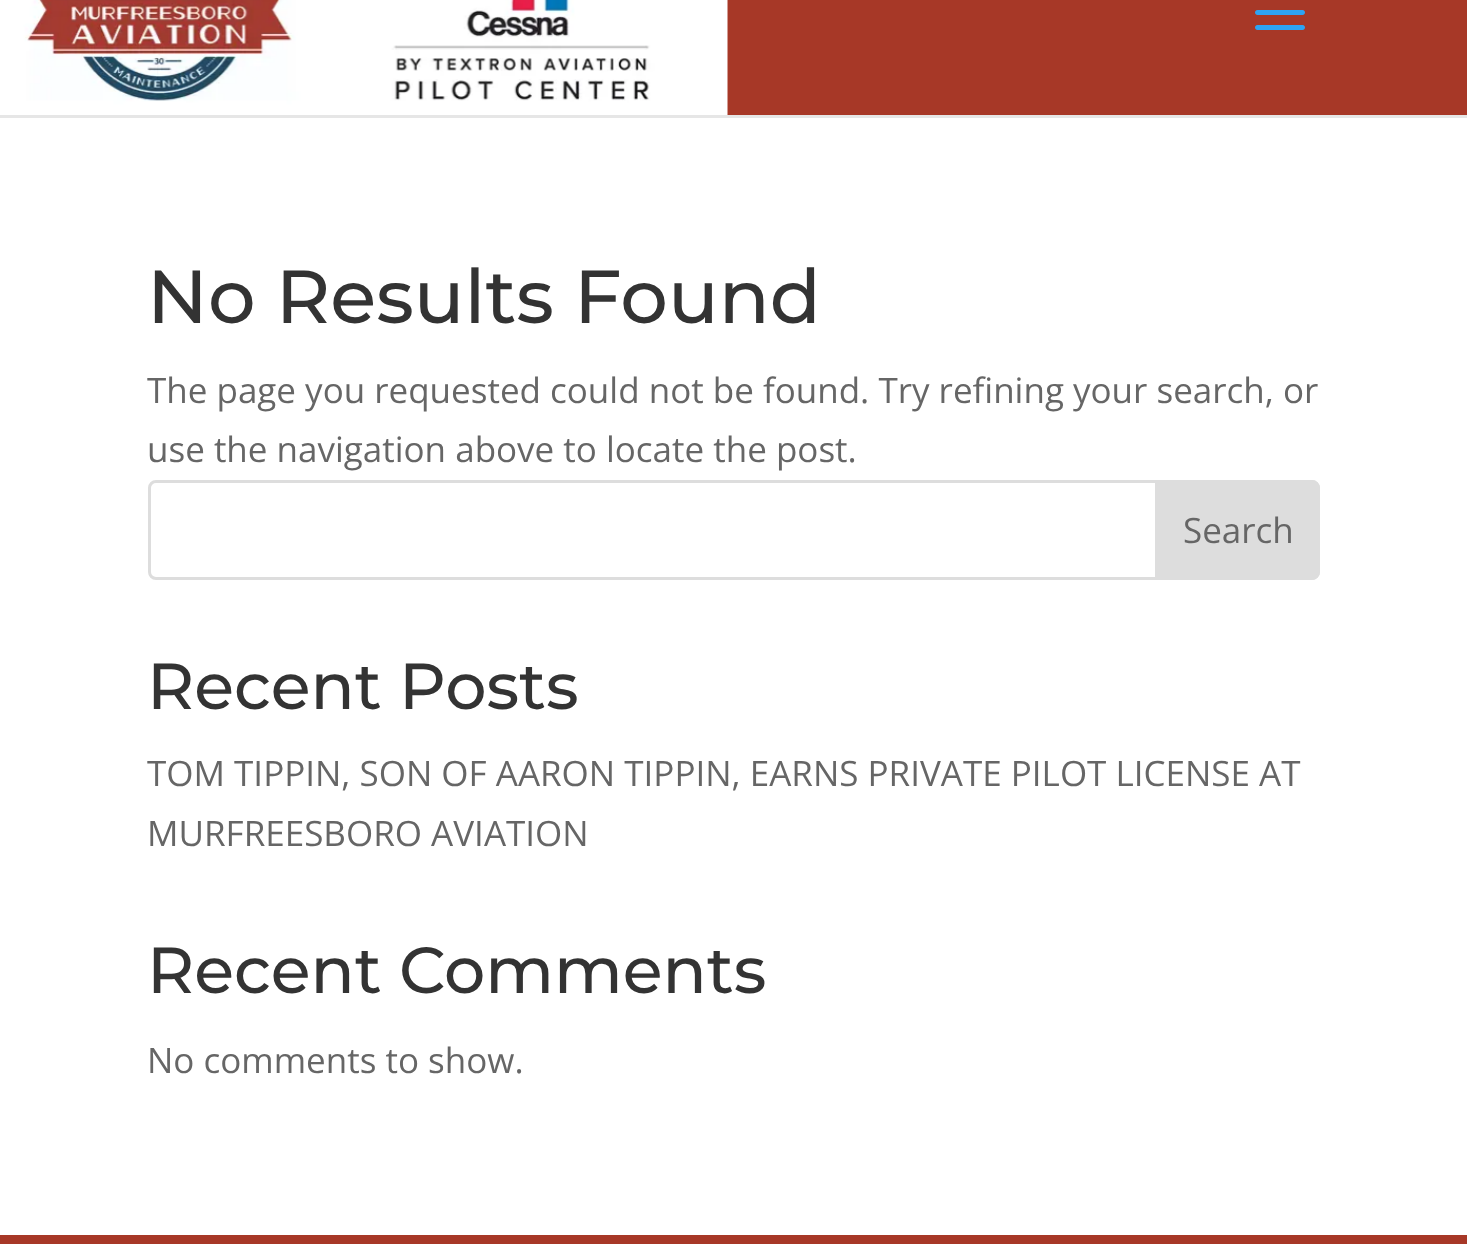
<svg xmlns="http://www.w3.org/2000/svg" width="1467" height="1244">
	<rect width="100%" height="100%" fill="#FFFFFF" />
	<path d="M0 115V118H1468V-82V115Z" fill="#E6E6E6" />
	<rect x="727" y="0" width="740" height="115" fill="#A73827" />
	<image x="0" y="0" width="728" height="115" href="assets/img1.png" />
	<image x="1255" y="10" width="50" height="20" href="assets/img2.png" />
	<text x="147" y="323" font-family="Montserrat" font-size="75" font-weight="500" fill="#333333">No Results Found</text>
	<g font-family="Open Sans" font-size="35" fill="#666666">
		<text x="147" y="403">The page you requested could not be found. Try refining your search, or</text>
		<text x="147" y="462">use the navigation above to locate the post.</text>
	</g>
	<rect x="149.5" y="481.5" width="1169" height="97" rx="6.5" fill="none" stroke="#DDDDDD" stroke-width="3" />
	<path d="M1156.5 481.5H1312C1315.5 481.5 1318.5 484.5 1318.5 488V572C1318.5 575.5 1315.5 578.5 1312 578.5H1156.5Z" fill="#DDDDDD" stroke="#DDDDDD" stroke-width="3" />
	<text x="1183" y="543" font-family="Open Sans" font-size="35" fill="#666666">Search</text>
	<text x="147" y="709" font-family="Montserrat" font-size="65" font-weight="500" fill="#333333">Recent Posts</text>
	<g font-family="Open Sans" font-size="35" fill="#666666">
		<text x="147" y="786">TOM TIPPIN, SON OF AARON TIPPIN, EARNS PRIVATE PILOT LICENSE AT</text>
		<text x="147" y="846">MURFREESBORO AVIATION</text>
	</g>
	<text x="147" y="993" font-family="Montserrat" font-size="65" font-weight="500" fill="#333333">Recent Comments</text>
	<text x="147" y="1073" font-family="Open Sans" font-size="35" fill="#666666">No comments to show.</text>
	<rect x="0" y="1235" width="1467" height="9" fill="#A73827" />
</svg>
